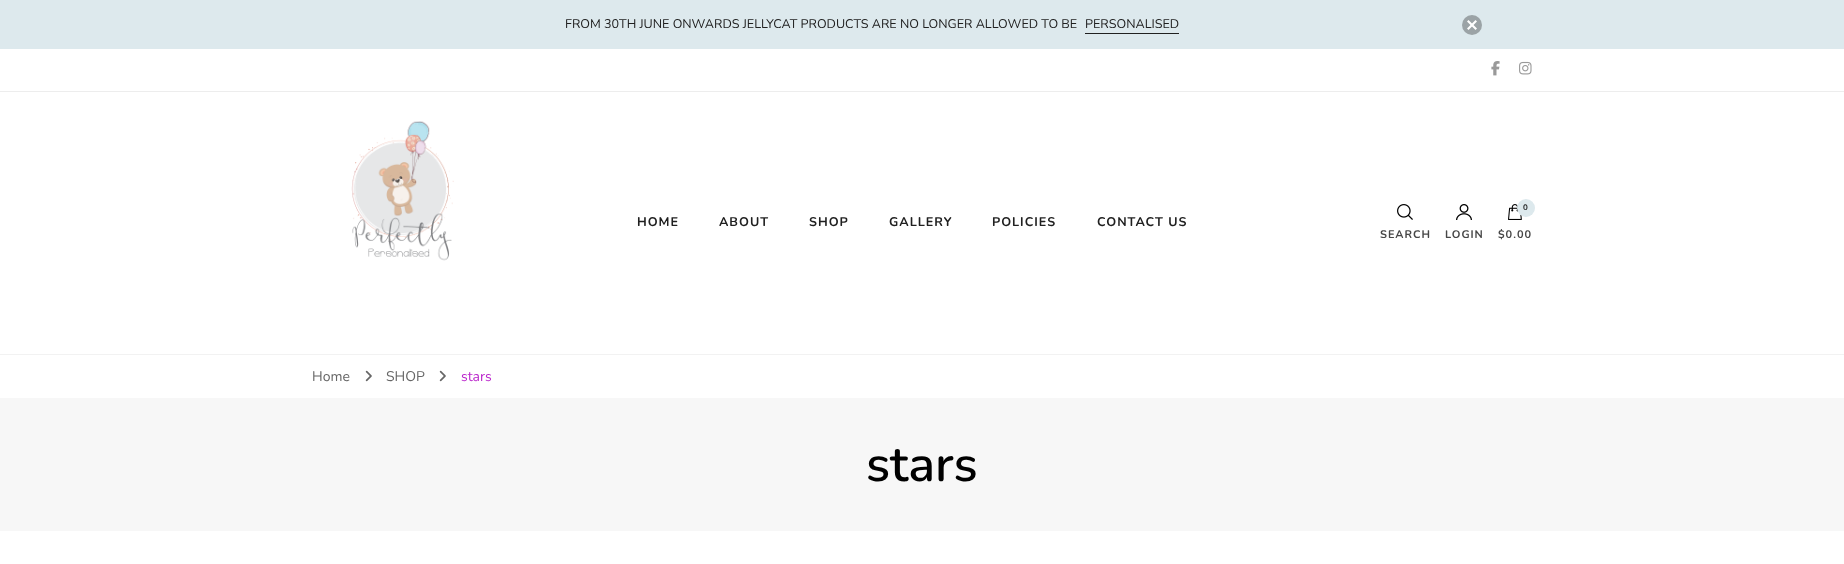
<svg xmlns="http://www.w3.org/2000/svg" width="1844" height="564">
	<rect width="100%" height="100%" fill="#FFFFFF" />
	<rect x="0" y="0" width="1844" height="49" fill="#DDE9ED" />
	<g font-family="Nunito" font-size="12.6" fill="#202020">
		<text x="565" y="28">FROM 30TH JUNE ONWARDS JELLYCAT PRODUCTS ARE NO LONGER ALLOWED TO BE</text>
		<text x="1085" y="28">PERSONALISED</text>
	</g>
	<rect x="1085" y="33" width="94" height="1" fill="#202020" />
	<circle cx="1472" cy="25" r="10" fill="#9BA3A6" />
	<path d="M1468.5 20L1477 28.5L1475.5 30L1467 21.5Z" fill="#FFFFFF" />
	<path d="M1467 28.5L1475.5 20L1477 21.5L1468.5 30Z" fill="#FFFFFF" />
	<rect x="0" y="91" width="1844" height="1" fill="#EDEDED" />
	<image x="1491" y="61" width="9" height="15" href="assets/img1.png" />
	<image x="1519" y="61" width="13" height="14" href="assets/img2.png" />
	<rect x="0" y="354" width="1844" height="1" fill="#F2F2F2" />
	<image x="351" y="121" width="103" height="140" href="assets/img3.png" />
	<g font-family="Nunito" font-size="12.6" font-weight="700" letter-spacing="1" fill="#202020">
		<text x="637" y="226">HOME</text>
		<text x="719" y="226">ABOUT</text>
		<text x="809" y="226">SHOP</text>
		<text x="889" y="226">GALLERY</text>
		<text x="992" y="226">POLICIES</text>
		<text x="1097" y="226">CONTACT US</text>
	</g>
	<image x="1397" y="204" width="16" height="16" href="assets/img4.png" />
	<text x="1380" y="238" font-family="Nunito" font-size="11" font-weight="700" letter-spacing="1" fill="#474747">SEARCH</text>
	<image x="1456" y="204" width="16" height="16" href="assets/img5.png" />
	<text x="1445" y="238" font-family="Nunito" font-size="11" font-weight="700" letter-spacing="1" fill="#474747">LOGIN</text>
	<image x="1508" y="204" width="14" height="16" href="assets/img6.png" />
	<circle cx="1526" cy="208" r="9" fill="#DDE9ED" />
	<text x="1523" y="210" font-family="Nunito" font-size="8" font-weight="700" letter-spacing="1" fill="#202020">0</text>
	<text x="1498" y="238" font-family="Nunito" font-size="11" font-weight="700" letter-spacing="1" fill="#474747">$0.00</text>
	<text x="312" y="381" font-family="Nunito" font-size="14" fill="#666666">Home</text>
	<image x="365" y="370" width="7" height="12" href="assets/img7.png" />
	<text x="386" y="381" font-family="Nunito" font-size="14" fill="#666666">SHOP</text>
	<image x="439" y="370" width="7" height="12" href="assets/img7.png" />
	<text x="461" y="381" font-family="Nunito" font-size="14" fill="#BB27CC">stars</text>
	<rect x="0" y="398" width="1844" height="133" fill="#F7F7F7" />
	<text x="866" y="481" font-family="Nunito" font-size="50" font-weight="600" fill="#000000">stars</text>
</svg>
